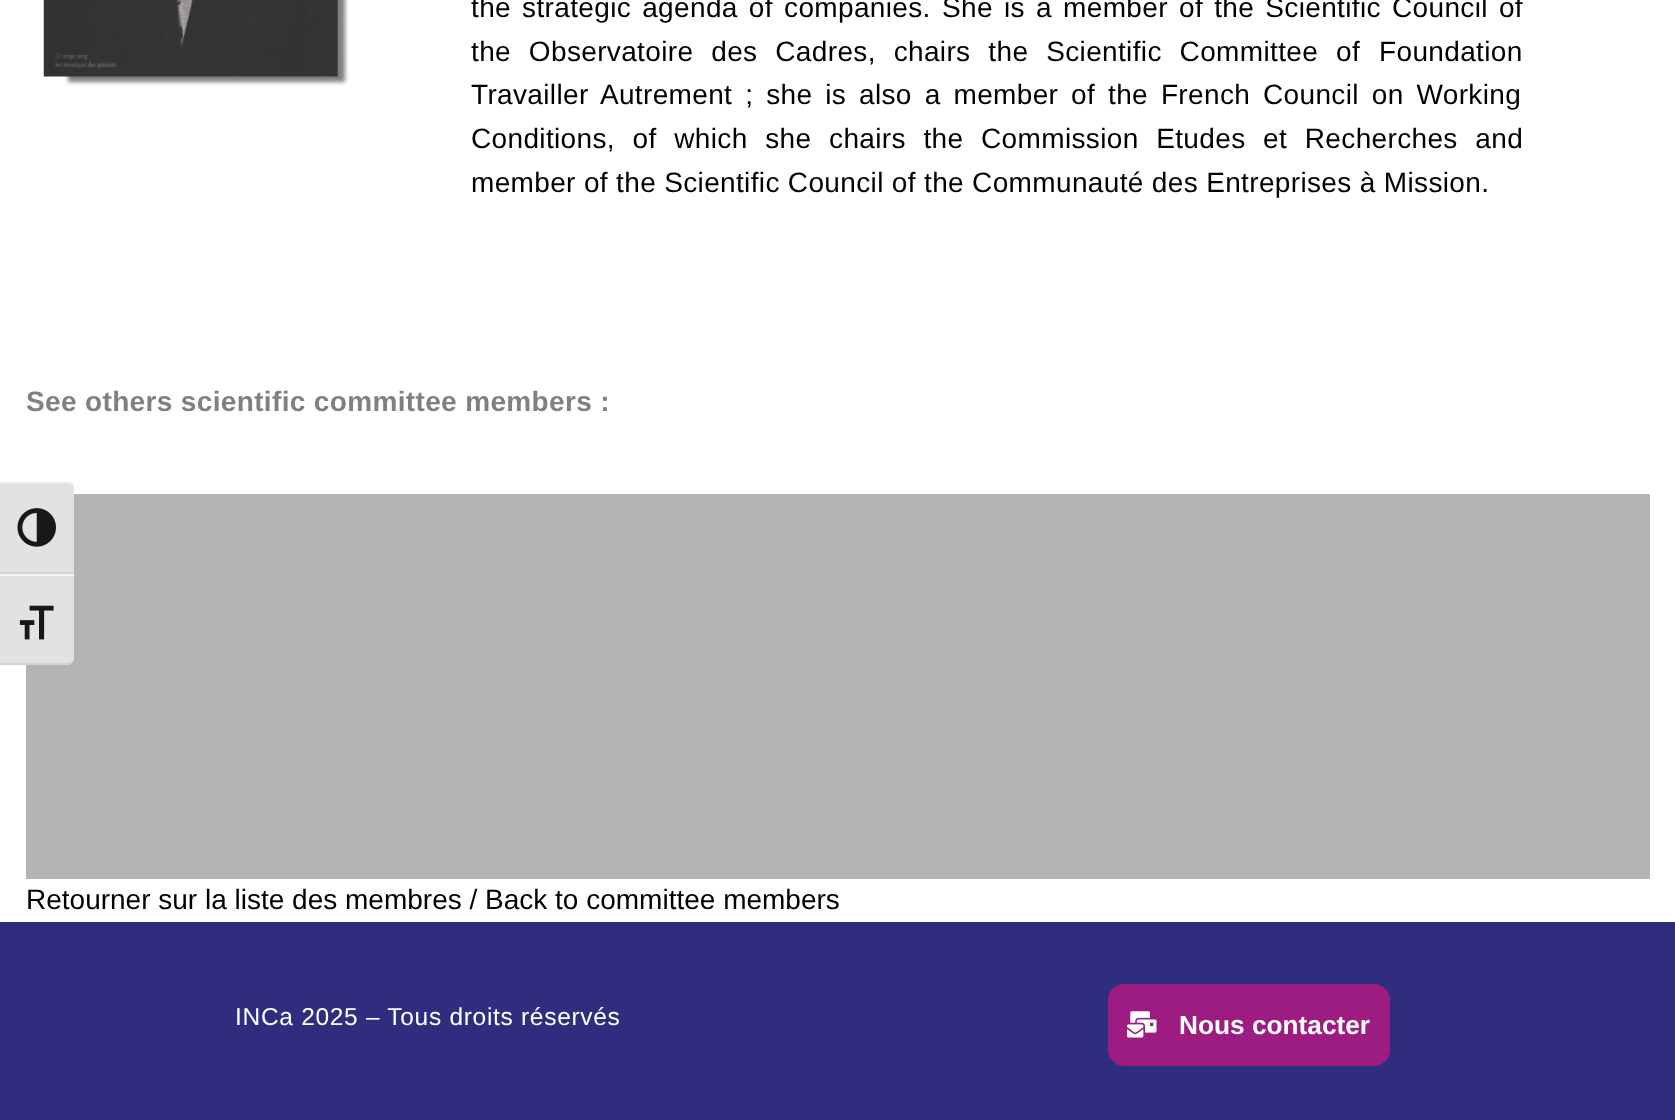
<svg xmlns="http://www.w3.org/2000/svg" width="1675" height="1120">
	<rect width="100%" height="100%" fill="#FFFFFF" />
	<rect x="68" y="-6" width="277" height="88" fill="#000000" fill-opacity="0.5" filter="blur(2px)" />
	<image x="43" y="0" width="295" height="77" href="assets/img1.png" />
	<g font-family="Liberation Sans" font-size="28" letter-spacing="0.35" fill="#000000">
		<text x="471" y="17" word-spacing="3">the strategic agenda of companies.</text>
		<text x="942" y="17" word-spacing="3">She is a member of the Scientific Council of</text>
		<text x="471" y="61" word-spacing="9.75">the Observatoire des Cadres, chairs the Scientific Committee of</text>
		<text x="1379" y="61">Foundation</text>
		<text x="471" y="104" word-spacing="4.75">Travailler Autrement ; she is also a member of the French Council on Working</text>
		<text x="471" y="148" word-spacing="9.5">Conditions, of which she chairs the Commission Etudes et Recherches and</text>
		<text x="471" y="192">member of the Scientific Council of the Communauté des Entreprises à Mission.</text>
	</g>
	<text x="26" y="411" font-family="Liberation Sans" font-size="28" font-weight="700" letter-spacing="0.35" fill="#808080">See others scientific committee members :</text>
	<rect x="26" y="494" width="1624" height="385" fill="#B3B3B3" />
	<text x="26" y="909" font-family="Liberation Sans" font-size="28" fill="#000000">Retourner sur la liste des membres / Back to committee members</text>
	<path d="M0 481H67C71 481 74 484 74 488V574H0Z" fill="#E2E2E2" />
	<path d="M0 483H66C69 483 72 484 74 486C73 483 70 482 68 481H0Z" fill="#F5F5F5" />
	<rect x="0" y="572" width="74" height="2" fill="#D2D2D2" />
	<image x="17" y="508" width="39" height="39" href="assets/img2.png" />
	<path d="M0 574H74V658C74 662 71 665 67 665H0Z" fill="#E2E2E2" />
	<rect x="0" y="574" width="74" height="2" fill="#F5F5F5" />
	<path d="M0 663V665H66C69 665 72 663 74 660C72 662 69 663 66 663Z" fill="#D2D2D2" />
	<image x="19" y="605" width="35" height="35" href="assets/img3.png" />
	<rect x="0" y="922" width="1675" height="198" fill="#2E2D7E" />
	<text x="235" y="1025" font-family="Liberation Sans" font-size="24.5" letter-spacing="0.7" fill="#FFFFFF">INCa 2025 – Tous droits réservés</text>
	<rect x="1108" y="984" width="282" height="82" rx="16" fill="#9D1C81" />
	<image x="1127" y="1011" width="30" height="27" href="assets/img4.png" />
	<text x="1179" y="1034" font-family="Liberation Sans" font-size="26.25" font-weight="700" fill="#FFFFFF">Nous contacter</text>
</svg>
